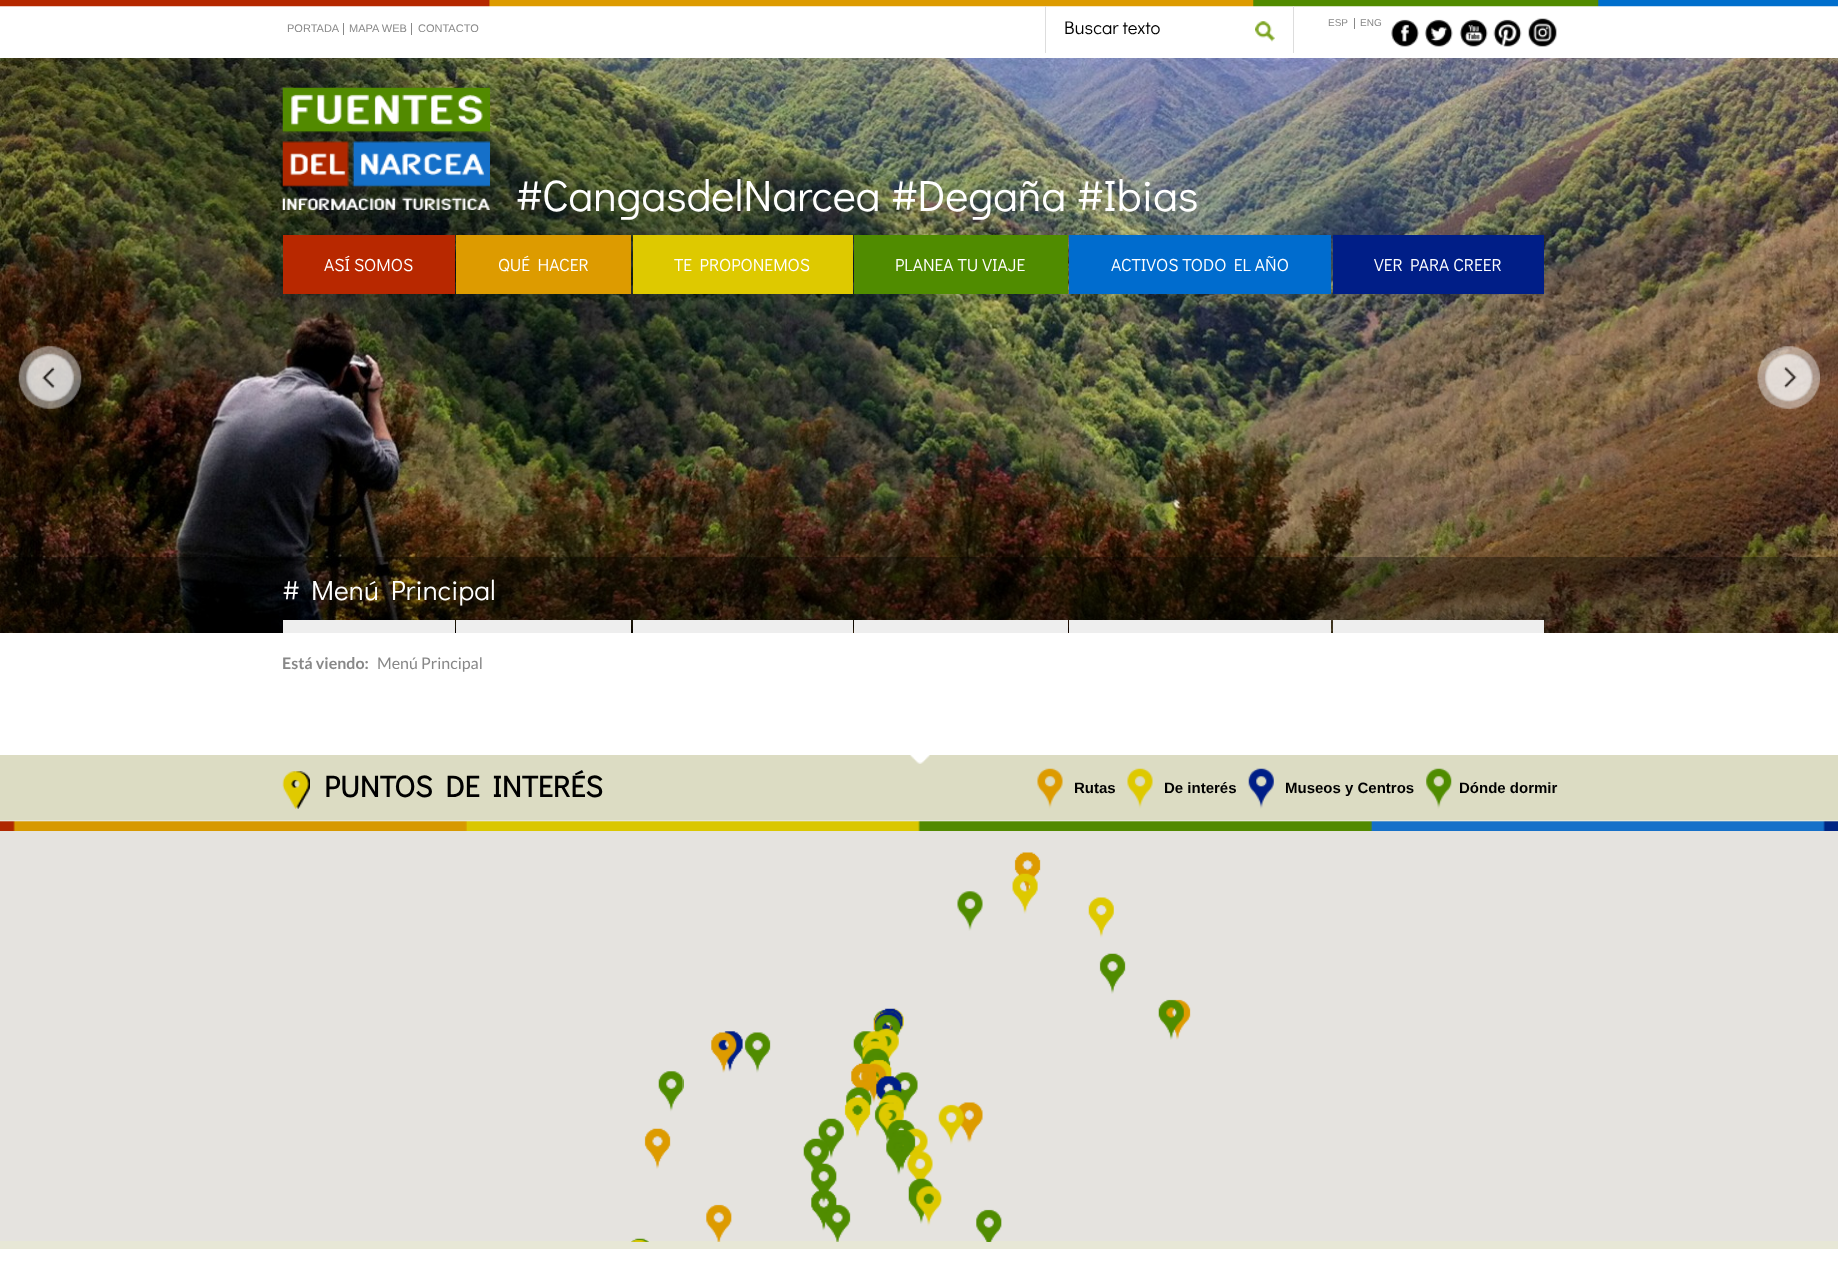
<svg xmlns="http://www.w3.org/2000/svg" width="1838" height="1264">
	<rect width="100%" height="100%" fill="#FFFFFF" />
	<image x="0" y="0" width="1838" height="7" href="assets/img1.png" />
	<g font-family="Liberation Sans" font-size="11" fill="#888888">
		<text x="287" y="32">PORTADA</text>
		<text x="349" y="32">MAPA WEB</text>
	</g>
	<rect x="343" y="23" width="1" height="12" fill="#888888" />
	<text x="418" y="32" font-family="Liberation Sans" font-size="11" fill="#888888">CONTACTO</text>
	<rect x="411" y="23" width="1" height="12" fill="#888888" />
	<rect x="1293" y="6" width="1" height="47" fill="#DDDDDD" />
	<rect x="1045" y="6" width="1" height="47" fill="#DDDDDD" />
	<text x="1064" y="34" font-family="Didact Gothic" font-size="18.5" fill="#000000">Buscar texto</text>
	<image x="1255" y="21" width="20" height="21" href="assets/img2.png" />
	<g font-family="Liberation Sans" font-size="10" fill="#888888">
		<text x="1328" y="26">ESP</text>
		<text x="1360" y="26">ENG</text>
	</g>
	<rect x="1354" y="18" width="1" height="11" fill="#888888" />
	<image x="1391" y="19" width="28" height="28" href="assets/img3.png" />
	<image x="1424" y="19" width="29" height="28" href="assets/img4.png" />
	<image x="1459" y="19" width="29" height="28" href="assets/img5.png" />
	<image x="1493" y="19" width="29" height="28" href="assets/img6.png" />
	<image x="1528" y="18" width="29" height="29" href="assets/img7.png" />
	<image x="0" y="58" width="1838" height="575" href="assets/img9.png" />
	<image x="282" y="87" width="208" height="123" href="assets/img8.png" />
	<text x="515" y="211" font-family="Didact Gothic" font-size="44" fill="#FFFFFF">#CangasdelNarcea #Degaña #Ibias</text>
	<rect x="283" y="235" width="172" height="59" fill="#B82800" />
	<text x="324" y="271" font-family="Didact Gothic" font-size="17.5" fill="#FFFFFF">ASÍ SOMOS</text>
	<rect x="456" y="235" width="175" height="59" fill="#DD9B00" />
	<text x="498" y="271" font-family="Didact Gothic" font-size="17.5" fill="#FFFFFF">QUÉ HACER</text>
	<rect x="633" y="235" width="220" height="59" fill="#DEC900" />
	<text x="674" y="271" font-family="Didact Gothic" font-size="17.5" fill="#FFFFFF">TE PROPONEMOS</text>
	<rect x="854" y="235" width="214" height="59" fill="#508C00" />
	<text x="895" y="271" font-family="Didact Gothic" font-size="17.5" fill="#FFFFFF">PLANEA TU VIAJE</text>
	<rect x="1069" y="235" width="262" height="59" fill="#006CCE" />
	<text x="1111" y="271" font-family="Didact Gothic" font-size="17.5" fill="#FFFFFF">ACTIVOS TODO EL AÑO</text>
	<rect x="1333" y="235" width="211" height="59" fill="#001E87" />
	<text x="1374" y="271" font-family="Didact Gothic" font-size="17.5" fill="#FFFFFF">VER PARA CREER</text>
	<image x="18" y="346" width="64" height="63" href="assets/img10.png" />
	<image x="1757" y="346" width="63" height="63" href="assets/img11.png" />
	<rect x="0" y="557" width="1838" height="76" fill="#000000" fill-opacity="0.33" />
	<text x="282" y="600" font-family="Didact Gothic" font-size="28" fill="#FFFFFF"># Menú Principal</text>
	<rect x="283" y="620" width="172" height="13" fill="#EEEEEE" />
	<rect x="456" y="620" width="175" height="13" fill="#EEEEEE" />
	<rect x="633" y="620" width="220" height="13" fill="#EEEEEE" />
	<rect x="854" y="620" width="214" height="13" fill="#EEEEEE" />
	<rect x="1069" y="620" width="262" height="13" fill="#EEEEEE" />
	<rect x="1333" y="620" width="211" height="13" fill="#EEEEEE" />
	<text x="282" y="669" font-family="Lato" font-size="16" font-weight="700" fill="#888888">Está viendo:</text>
	<text x="377" y="669" font-family="Lato" font-size="16" fill="#888888">Menú Principal</text>
	<rect x="0" y="755" width="1838" height="65" fill="#DCDCC3" />
	<image x="910" y="755" width="20" height="9" href="assets/img12.png" />
	<rect x="0" y="1241" width="1838" height="8" fill="#E7E7D6" />
	<image x="0" y="820" width="1838" height="11" href="assets/img13.png" />
	<image x="282" y="771" width="28" height="38" href="assets/img14.png" />
	<text x="324" y="797" font-family="Didact Gothic" font-size="30" font-weight="700" fill="#000000">PUNTOS DE INTERÉS</text>
	<image x="1037" y="768" width="26" height="41" href="assets/img15.png" />
	<text x="1074" y="793" font-family="Liberation Sans" font-size="15" font-weight="700" fill="#000000">Rutas</text>
	<image x="1127" y="768" width="26" height="41" href="assets/img16.png" />
	<text x="1164" y="793" font-family="Liberation Sans" font-size="15" font-weight="700" fill="#000000">De interés</text>
	<image x="1248" y="768" width="26" height="41" href="assets/img17.png" />
	<text x="1285" y="793" font-family="Liberation Sans" font-size="15" font-weight="700" fill="#000000">Museos y Centros</text>
	<image x="1426" y="768" width="26" height="41" href="assets/img18.png" />
	<text x="1459" y="793" font-family="Liberation Sans" font-size="15" font-weight="700" fill="#000000">Dónde dormir</text>
	<rect x="0" y="831" width="1838" height="410" fill="#E5E3DF" />
	<image x="957" y="891" width="26" height="40" href="assets/img19.png" />
	<image x="1012" y="852" width="114" height="142" href="assets/img20.png" />
	<image x="682" y="1008" width="320" height="234" href="assets/img22.png" />
	<image x="631" y="1071" width="52" height="171" href="assets/img21.png" />
	<image x="1158" y="999" width="33" height="41" href="assets/img23.png" />
</svg>
